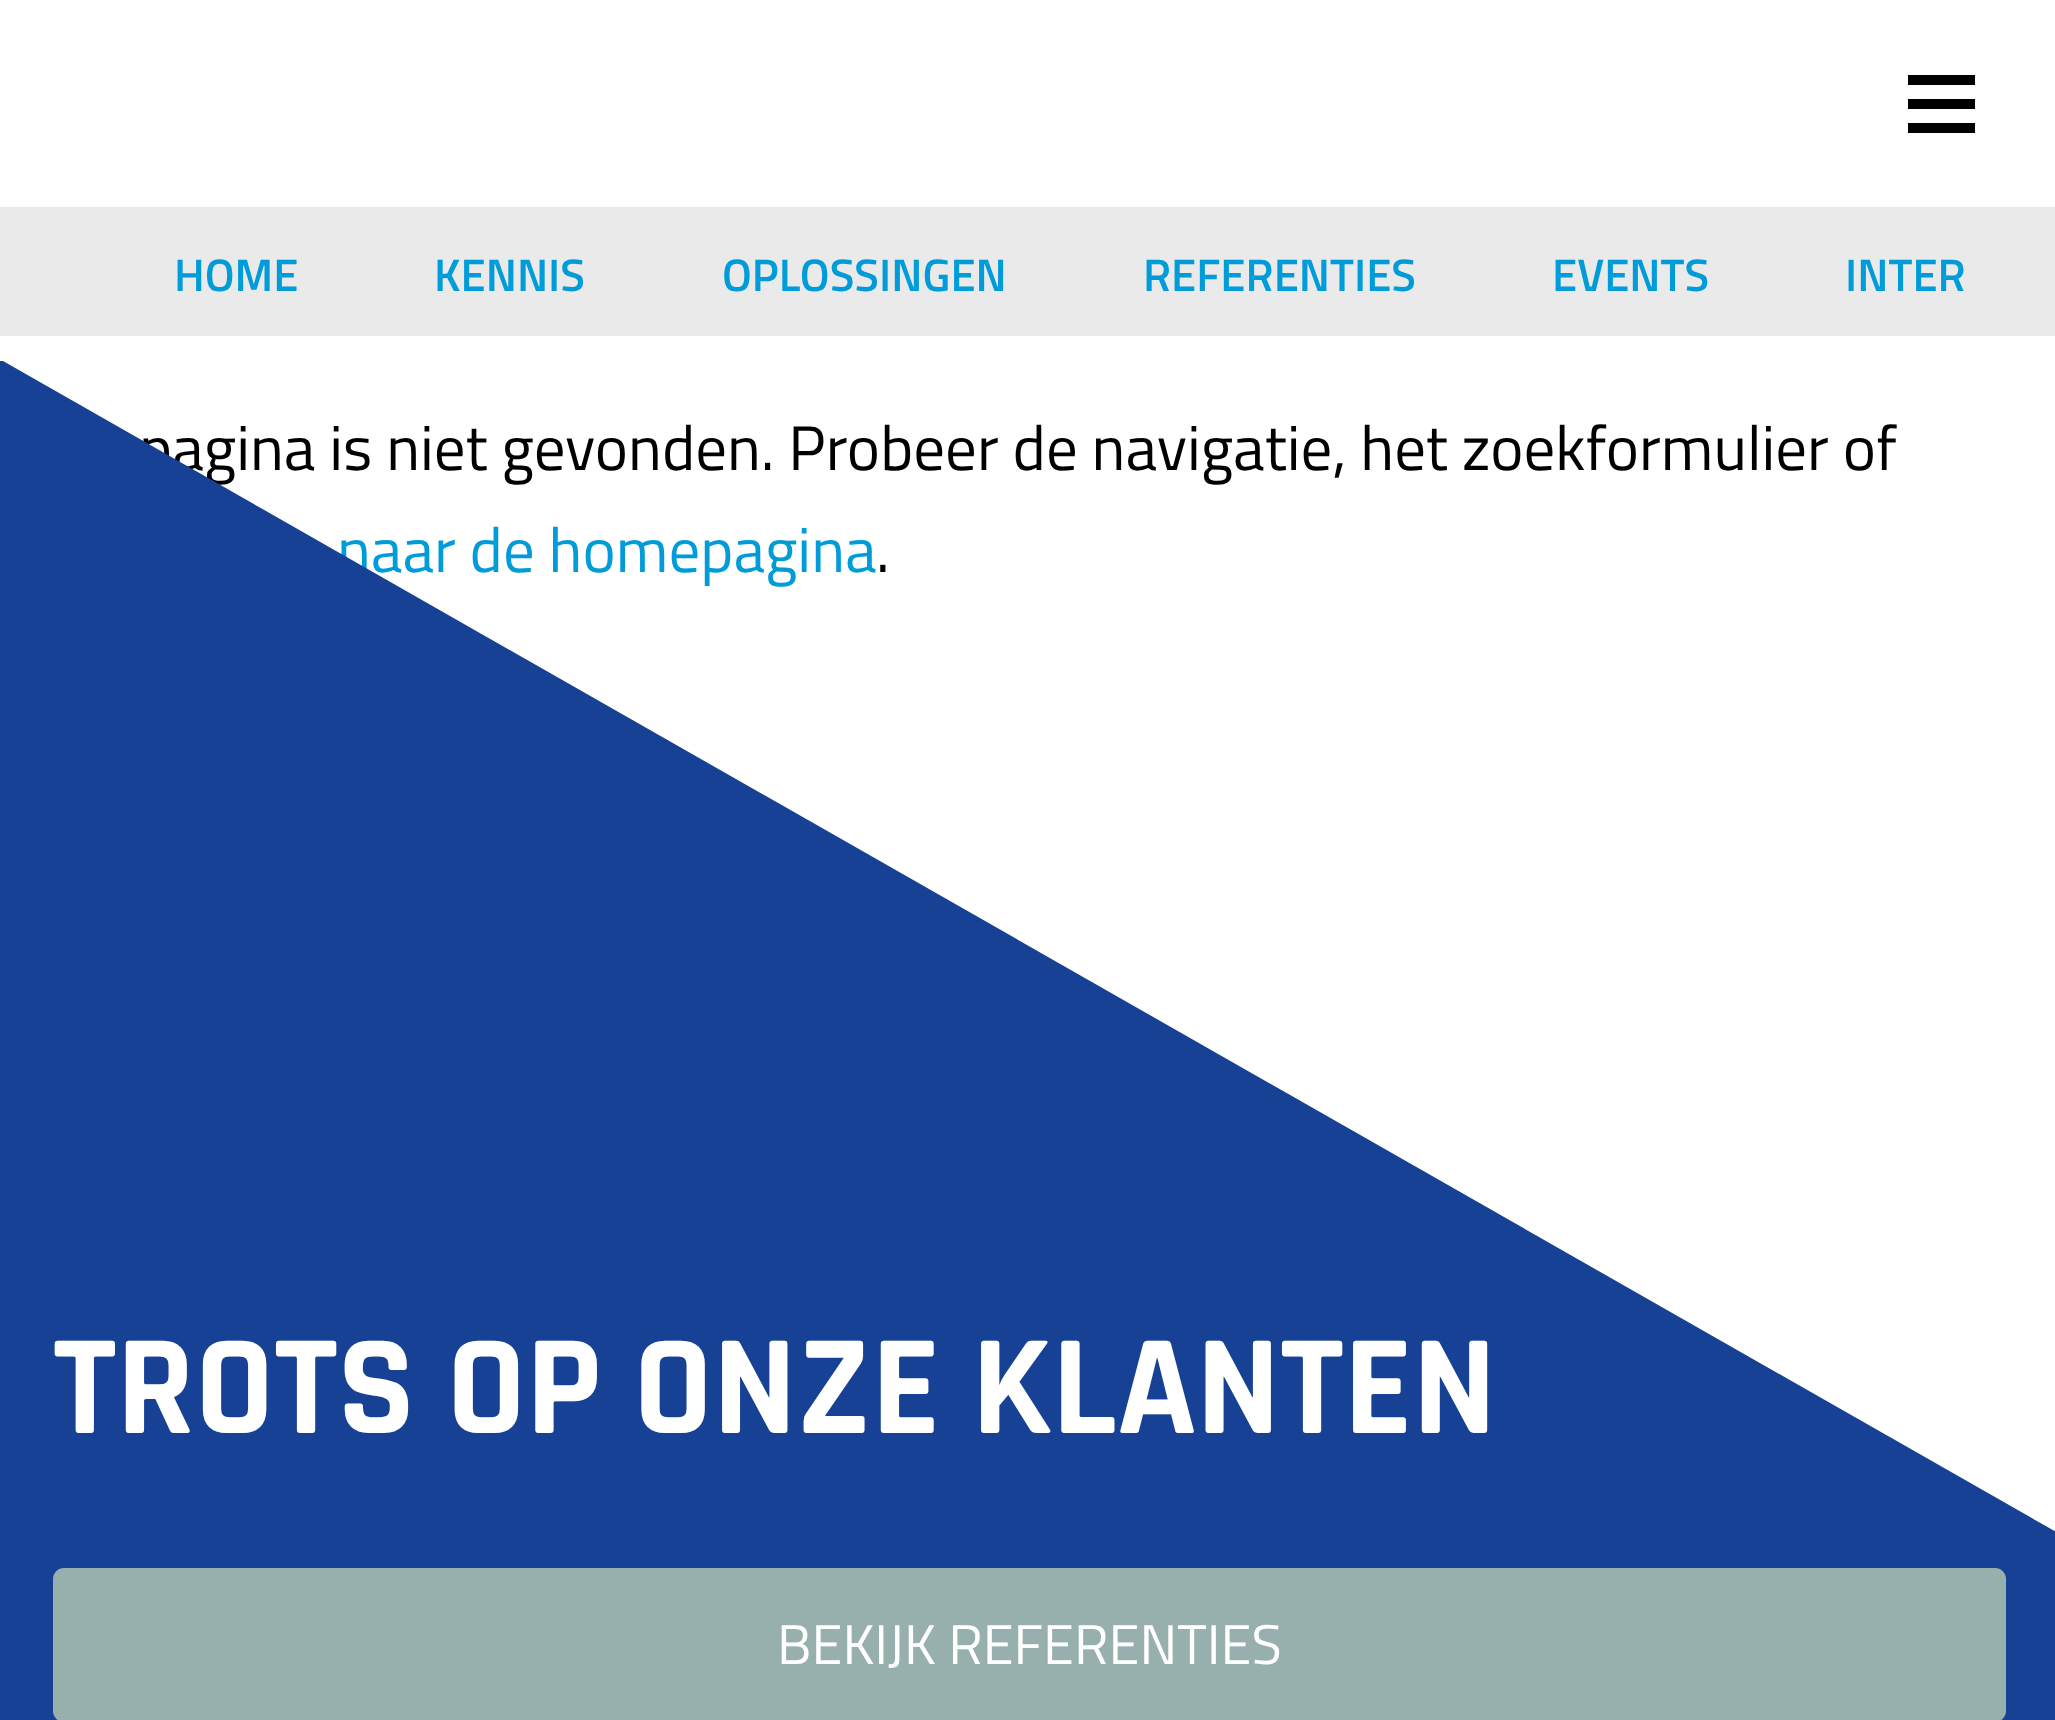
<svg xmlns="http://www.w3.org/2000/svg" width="2055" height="1720">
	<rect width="100%" height="100%" fill="#FFFFFF" />
	<path d="M1908 75H1975H1908H1975V85H1908ZM1908 99H1975H1908H1975V109H1908ZM1975 123V133V123V133H1908V123Z" fill="#000000" />
	<rect x="0" y="207" width="2055" height="129" fill="#EAEAEA" />
	<g font-family="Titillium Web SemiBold" font-size="45.5" font-weight="600" fill="#009CD9">
		<text x="174" y="291">HOME</text>
		<text x="434" y="291">KENNIS</text>
		<text x="722" y="291">OPLOSSINGEN</text>
		<text x="1143" y="291">REFERENTIES</text>
		<text x="1552" y="291">EVENTS</text>
		<text x="1845" y="291">INTER</text>
	</g>
	<text x="139" y="470" font-family="Titillium Web" font-size="63" fill="#000000">pagina is niet gevonden. Probeer de navigatie, het zoekformulier of</text>
	<text x="337" y="572" font-family="Titillium Web" font-size="63" fill="#009CD9">naar de homepagina</text>
	<text x="876" y="572" font-family="Titillium Web" font-size="63" fill="#000000">.</text>
	<path d="M0 361V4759L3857 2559L3 361Z" fill="#164194" />
	<text x="53" y="1433" font-family="Rajdhani" font-size="143.5" font-weight="700" fill="#FFFFFF">TROTS OP ONZE KLANTEN</text>
	<rect x="53" y="1568" width="1953" height="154" rx="11" fill="#97B0AD" />
	<text x="777" y="1664" font-family="Titillium Web" font-size="56" fill="#FFFFFF">BEKIJK REFERENTIES</text>
</svg>
